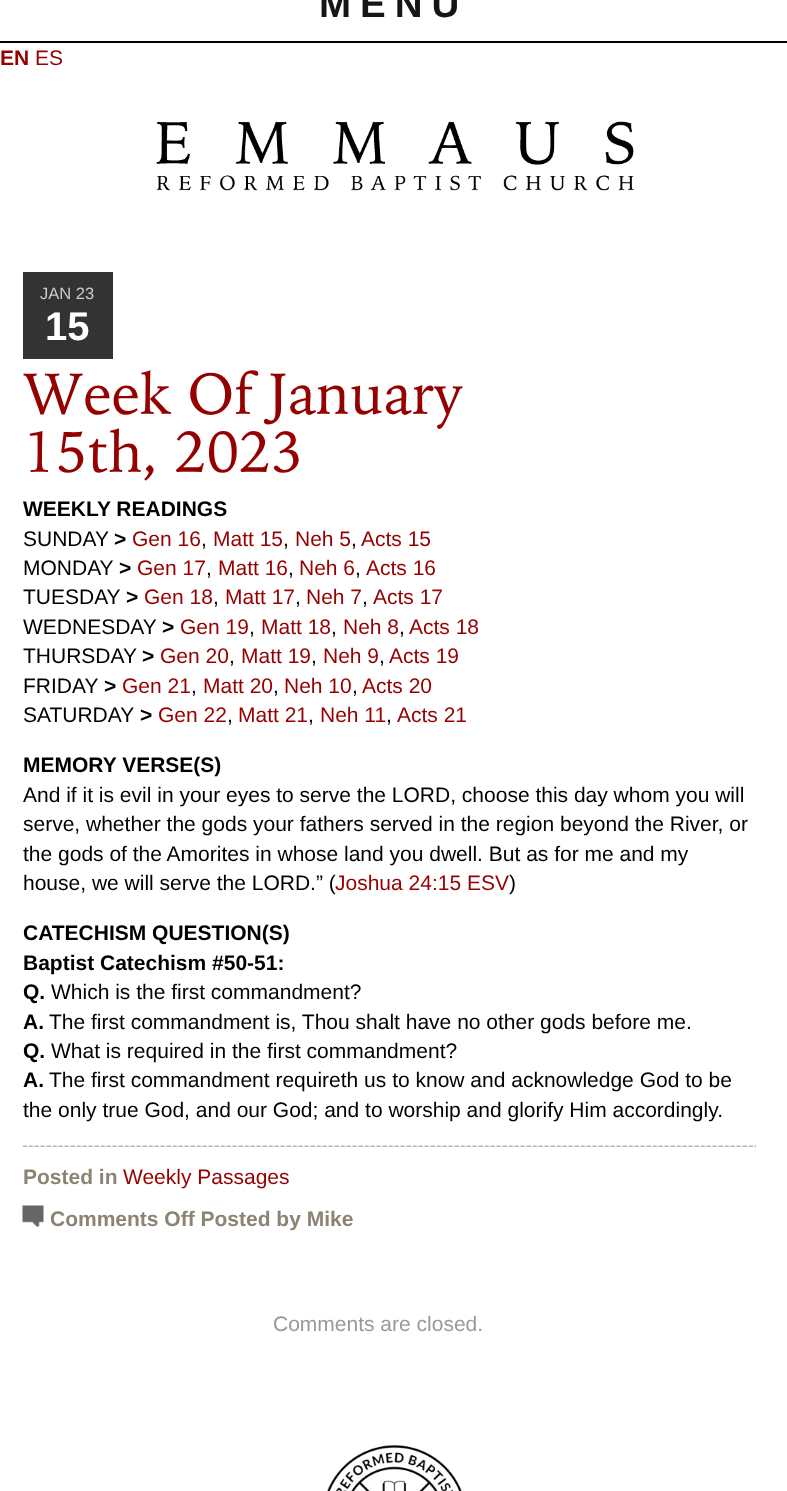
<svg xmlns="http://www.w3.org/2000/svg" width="787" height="1491">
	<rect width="100%" height="100%" fill="#FFFFFF" />
	<rect x="0" y="41" width="787" height="2" fill="#000000" />
	<text x="319" y="17" font-family="Liberation Sans" font-size="38.5" font-weight="700" letter-spacing="9" fill="#161616">MENU</text>
	<text x="0" y="65" font-family="Liberation Sans" font-size="21" font-weight="700" fill="#950000">EN</text>
	<text x="35" y="65" font-family="Liberation Sans" font-size="21" fill="#950000">ES</text>
	<image x="156" y="121" width="478" height="70" href="assets/img1.png" />
	<rect x="23" y="272" width="90" height="87" fill="#333333" />
	<text x="40" y="299" font-family="Liberation Sans" font-size="16.5" fill="#CCCCCC">JAN 23</text>
	<text x="45" y="340" font-family="Liberation Sans" font-size="40" font-weight="700" fill="#FFFFFF">15</text>
	<g font-family="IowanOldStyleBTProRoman" font-size="58" fill="#950000">
		<text x="23" y="414">Week Of January</text>
		<text x="23" y="472">15th, 2023</text>
	</g>
	<text x="23" y="516" font-family="Liberation Sans" font-size="21" font-weight="700" fill="#000000">WEEKLY READINGS</text>
	<text x="23" y="546" font-family="Liberation Sans" font-size="21" fill="#000000">SUNDAY</text>
	<text x="114" y="546" font-family="Liberation Sans" font-size="21" font-weight="700" fill="#000000">&gt;</text>
	<g font-family="Liberation Sans" font-size="21" fill="#950000">
		<text x="132" y="546">Gen 16</text>
		<text x="213" y="546">Matt 15</text>
		<text x="295" y="546">Neh 5</text>
		<text x="361" y="546">Acts 15</text>
	</g>
	<g font-family="Liberation Sans" font-size="21" fill="#000000">
		<text x="201" y="546">,</text>
		<text x="283" y="546">,</text>
		<text x="351" y="546">,</text>
		<text x="23" y="575">MONDAY</text>
	</g>
	<text x="119" y="575" font-family="Liberation Sans" font-size="21" font-weight="700" fill="#000000">&gt;</text>
	<g font-family="Liberation Sans" font-size="21" fill="#950000">
		<text x="137" y="575">Gen 17</text>
		<text x="218" y="575">Matt 16</text>
		<text x="299" y="575">Neh 6</text>
		<text x="366" y="575">Acts 16</text>
	</g>
	<g font-family="Liberation Sans" font-size="21" fill="#000000">
		<text x="206" y="575">,</text>
		<text x="288" y="575">,</text>
		<text x="355" y="575">,</text>
		<text x="23" y="604">TUESDAY</text>
	</g>
	<text x="126" y="604" font-family="Liberation Sans" font-size="21" font-weight="700" fill="#000000">&gt;</text>
	<g font-family="Liberation Sans" font-size="21" fill="#950000">
		<text x="144" y="604">Gen 18</text>
		<text x="225" y="604">Matt 17</text>
		<text x="306" y="604">Neh 7</text>
		<text x="373" y="604">Acts 17</text>
	</g>
	<g font-family="Liberation Sans" font-size="21" fill="#000000">
		<text x="213" y="604">,</text>
		<text x="295" y="604">,</text>
		<text x="362" y="604">,</text>
		<text x="23" y="634">WEDNESDAY</text>
	</g>
	<text x="162" y="634" font-family="Liberation Sans" font-size="21" font-weight="700" fill="#000000">&gt;</text>
	<g font-family="Liberation Sans" font-size="21" fill="#950000">
		<text x="180" y="634">Gen 19</text>
		<text x="261" y="634">Matt 18</text>
		<text x="343" y="634">Neh 8</text>
		<text x="409" y="634">Acts 18</text>
	</g>
	<g font-family="Liberation Sans" font-size="21" fill="#000000">
		<text x="249" y="634">,</text>
		<text x="331" y="634">,</text>
		<text x="399" y="634">,</text>
		<text x="23" y="663">THURSDAY</text>
	</g>
	<text x="142" y="663" font-family="Liberation Sans" font-size="21" font-weight="700" fill="#000000">&gt;</text>
	<g font-family="Liberation Sans" font-size="21" fill="#950000">
		<text x="160" y="663">Gen 20</text>
		<text x="241" y="663">Matt 19</text>
		<text x="323" y="663">Neh 9</text>
		<text x="389" y="663">Acts 19</text>
	</g>
	<g font-family="Liberation Sans" font-size="21" fill="#000000">
		<text x="229" y="663">,</text>
		<text x="311" y="663">,</text>
		<text x="379" y="663">,</text>
		<text x="23" y="693">FRIDAY</text>
	</g>
	<text x="104" y="693" font-family="Liberation Sans" font-size="21" font-weight="700" fill="#000000">&gt;</text>
	<g font-family="Liberation Sans" font-size="21" fill="#950000">
		<text x="122" y="693">Gen 21</text>
		<text x="203" y="693">Matt 20</text>
		<text x="284" y="693">Neh 10</text>
		<text x="362" y="693">Acts 20</text>
	</g>
	<g font-family="Liberation Sans" font-size="21" fill="#000000">
		<text x="191" y="693">,</text>
		<text x="273" y="693">,</text>
		<text x="352" y="693">,</text>
		<text x="23" y="722">SATURDAY</text>
	</g>
	<text x="140" y="722" font-family="Liberation Sans" font-size="21" font-weight="700" fill="#000000">&gt;</text>
	<g font-family="Liberation Sans" font-size="21" fill="#950000">
		<text x="158" y="722">Gen 22</text>
		<text x="238" y="722">Matt 21</text>
		<text x="320" y="722">Neh 11</text>
		<text x="397" y="722">Acts 21</text>
	</g>
	<g font-family="Liberation Sans" font-size="21" fill="#000000">
		<text x="227" y="722">,</text>
		<text x="308" y="722">,</text>
		<text x="386" y="722">,</text>
	</g>
	<text x="23" y="772" font-family="Liberation Sans" font-size="21" font-weight="700" fill="#000000">MEMORY VERSE(S)</text>
	<g font-family="Liberation Sans" font-size="21" fill="#000000">
		<text x="23" y="802">And if it is evil in your eyes to serve the LORD, choose this day whom you will</text>
		<text x="23" y="831">serve, whether the gods your fathers served in the region beyond the River, or</text>
		<text x="23" y="861">the gods of the Amorites in whose land you dwell. But as for me and my</text>
		<text x="23" y="890">house, we will serve the LORD.” (</text>
	</g>
	<text x="335" y="890" font-family="Liberation Sans" font-size="21" fill="#950000">Joshua 24:15 ESV</text>
	<text x="509" y="890" font-family="Liberation Sans" font-size="21" fill="#000000">)</text>
	<g font-family="Liberation Sans" font-size="21" font-weight="700" fill="#000000">
		<text x="23" y="940">CATECHISM QUESTION(S)</text>
		<text x="23" y="970">Baptist Catechism #50-51:</text>
		<text x="23" y="999">Q.</text>
	</g>
	<text x="51" y="999" font-family="Liberation Sans" font-size="21" fill="#000000">Which is the first commandment?</text>
	<text x="23" y="1029" font-family="Liberation Sans" font-size="21" font-weight="700" fill="#000000">A.</text>
	<text x="49" y="1029" font-family="Liberation Sans" font-size="21" fill="#000000">The first commandment is, Thou shalt have no other gods before me.</text>
	<text x="23" y="1058" font-family="Liberation Sans" font-size="21" font-weight="700" fill="#000000">Q.</text>
	<text x="51" y="1058" font-family="Liberation Sans" font-size="21" fill="#000000">What is required in the first commandment?</text>
	<text x="23" y="1087" font-family="Liberation Sans" font-size="21" font-weight="700" fill="#000000">A.</text>
	<g font-family="Liberation Sans" font-size="21" fill="#000000">
		<text x="49" y="1087">The first commandment requireth us to know and acknowledge God to be</text>
		<text x="23" y="1117">the only true God, and our God; and to worship and glorify Him accordingly.</text>
	</g>
	<image x="22" y="1145" width="734" height="2" href="assets/img2.png" />
	<text x="23" y="1184" font-family="Liberation Sans" font-size="21" font-weight="700" fill="#8C8473">Posted in</text>
	<text x="123" y="1184" font-family="Liberation Sans" font-size="21" fill="#950000">Weekly Passages</text>
	<image x="22" y="1205" width="22" height="22" href="assets/img3.png" />
	<text x="50" y="1226" font-family="Liberation Sans" font-size="21" font-weight="700" fill="#8C8473">Comments Off Posted by Mike</text>
	<text x="273" y="1331" font-family="Liberation Sans" font-size="21" fill="#999999">Comments are closed.</text>
	<image x="327" y="1444" width="135" height="47" href="assets/img4.png" />
</svg>
